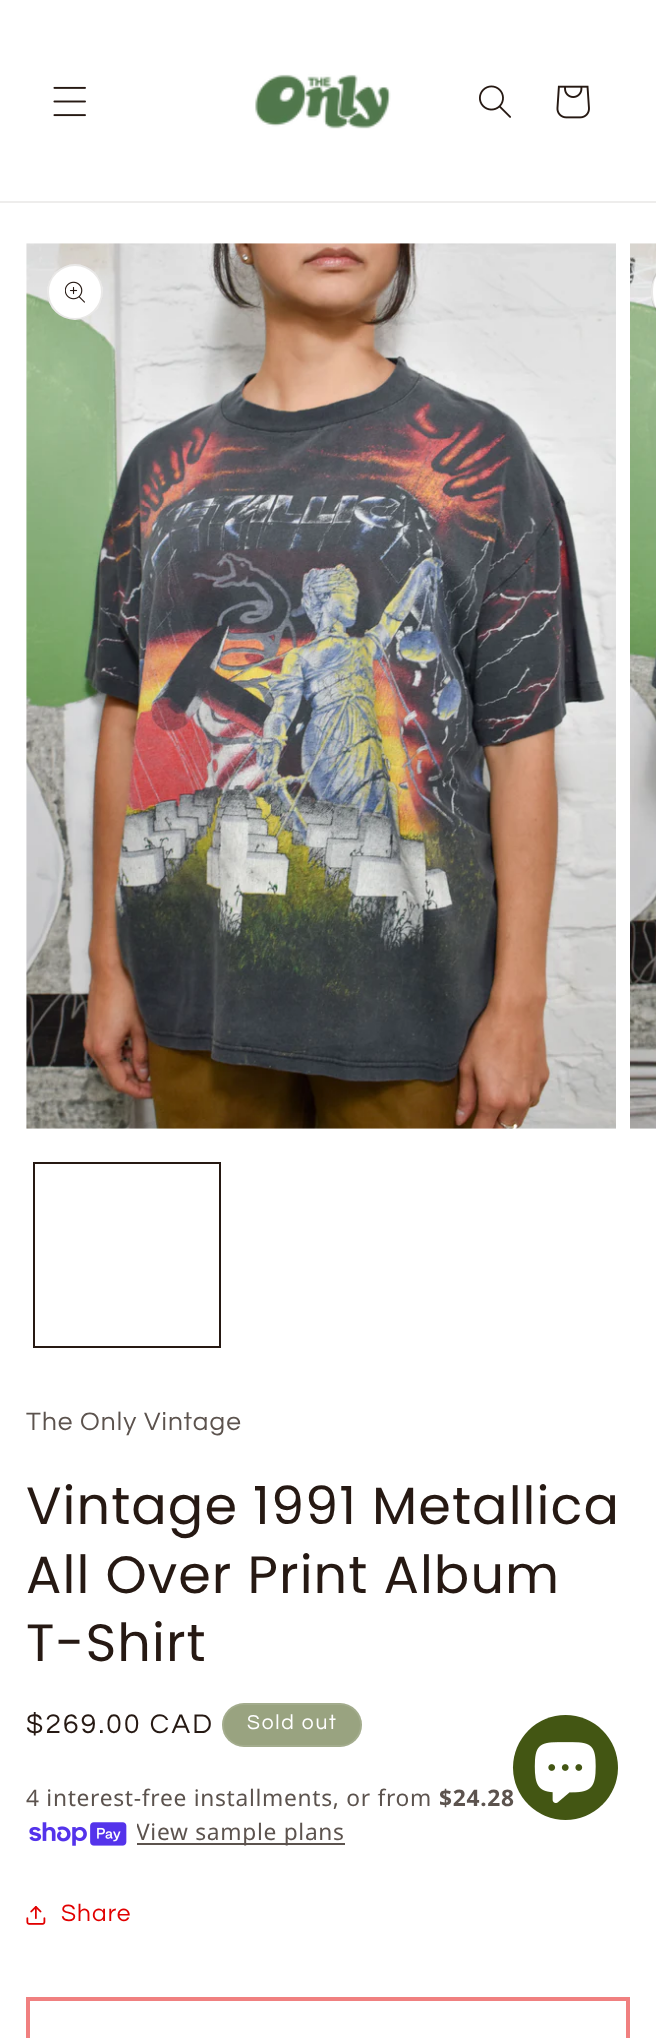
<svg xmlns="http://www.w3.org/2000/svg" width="656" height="2038">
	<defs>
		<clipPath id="clip1"><rect x="137" y="1817" width="208" height="33" /></clipPath>
	</defs>
	<rect width="100%" height="100%" fill="#FFFFFF" />
	<rect x="0" y="201" width="656" height="2" fill="#EEEDEC" />
	<image x="53" y="86" width="33" height="31" href="assets/img1.png" />
	<image x="255" y="74" width="136" height="55" href="assets/img2.png" />
	<image x="479" y="85" width="32" height="33" href="assets/img3.png" />
	<image x="556" y="85" width="34" height="34" href="assets/img4.png" />
	<image x="26" y="243" width="590" height="886" href="assets/img5.png" />
	<circle cx="75" cy="292" r="28" fill="#FFFFFF" />
	<circle cx="75" cy="292" r="27" fill="none" stroke="#261913" stroke-opacity="0.1" stroke-width="2" />
	<image x="65" y="281" width="20" height="22" href="assets/img6.png" />
	<image x="630" y="243" width="26" height="886" href="assets/img7.png" />
	<path d="M679 264H656V320H679C663.5 320 651 307.5 651 292C651 276.5 663.5 264 679 264Z" fill="#FFFFFF" />
	<rect x="652" y="265" width="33" height="54" rx="27" fill="none" stroke="#261913" stroke-opacity="0.1" stroke-width="2" />
	<rect x="34" y="1163" width="186" height="184" fill="none" stroke="#261913" stroke-width="2" />
	<text x="26" y="1430" font-family="Questrial" font-size="26.25" letter-spacing="1.05" fill="#5C534E">The Only Vintage</text>
	<g font-family="Poppins" font-size="52.5" letter-spacing="1.05" fill="#261913">
		<text x="26" y="1524">Vintage 1991 Metallica</text>
		<text x="26" y="1593">All Over Print Album</text>
		<text x="26" y="1661">T-Shirt</text>
	</g>
	<text x="26" y="1733" font-family="Questrial" font-size="28" letter-spacing="2.25" fill="#261913">$269.00 CAD</text>
	<rect x="222" y="1703" width="140" height="44" rx="22" fill="#99A380" />
	<rect x="223" y="1704" width="138" height="42" rx="21" fill="none" stroke="#FFFFFF" stroke-opacity="0.1" stroke-width="2" />
	<text x="247" y="1729" font-family="Questrial" font-size="21" letter-spacing="1.75" fill="#FFFFFF">Sold out</text>
	<text x="26" y="1806" font-family="Noto Sans" font-size="22.75" letter-spacing="0.7" fill="#5C534E">4 interest-free installments, or from</text>
	<text x="439" y="1806" font-family="Noto Sans" font-size="22.75" font-weight="700" letter-spacing="0.7" fill="#5C534E">$24.28</text>
	<image x="29" y="1822" width="98" height="24" href="assets/img8.png" />
	<rect x="137" y="1843" width="208" height="2" fill="#5C534E" />
	<g clip-path="url(#clip1)">
		<text x="136" y="1840" font-family="Noto Sans" font-size="22.75" letter-spacing="0.7" fill="#5C534E">View sample plans</text>
	</g>
	<image x="26" y="1906" width="20" height="19" href="assets/img9.png" />
	<text x="61" y="1921" font-family="Questrial" font-size="24.5" letter-spacing="1.05" fill="#E10000">Share</text>
	<rect x="28" y="1999" width="600" height="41" fill="none" stroke="#F08080" stroke-width="4" />
	<circle cx="565.5" cy="1767.5" r="52.5" fill="#435613" />
	<image x="534" y="1742" width="62" height="61" href="assets/img10.png" />
</svg>
